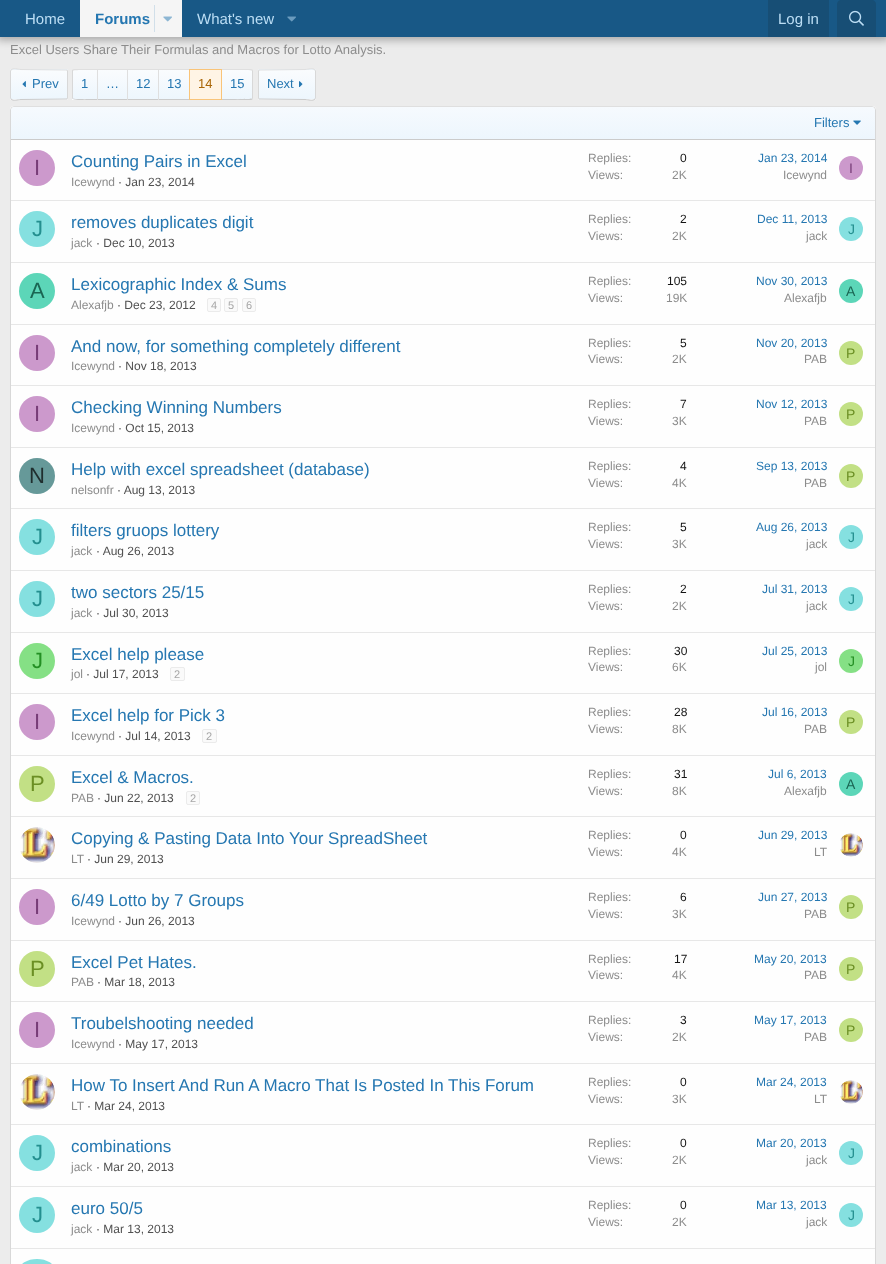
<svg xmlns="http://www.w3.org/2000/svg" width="886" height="1264">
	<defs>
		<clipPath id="clip1"><rect x="10" y="69" width="58" height="31" rx="2" /></clipPath>
		<linearGradient id="g1" gradientUnits="userSpaceOnUse" x1="39" y1="70" x2="39" y2="41"><stop offset="0" stop-color="#EDF6FD" /><stop offset="1" stop-color="#FAFCFE" /></linearGradient>
		<linearGradient id="g2" gradientUnits="userSpaceOnUse" x1="39" y1="99" x2="39" y2="70"><stop offset="0" stop-color="#EDF6FD" /><stop offset="1" stop-color="#FAFCFE" /></linearGradient>
		<linearGradient id="g3" gradientUnits="userSpaceOnUse" x1="39" y1="128" x2="39" y2="99"><stop offset="0" stop-color="#EDF6FD" /><stop offset="1" stop-color="#FAFCFE" /></linearGradient>
		<linearGradient id="g4" gradientUnits="userSpaceOnUse" x1="85" y1="99" x2="85" y2="70"><stop offset="0" stop-color="#EDF6FD" /><stop offset="1" stop-color="#FAFCFE" /></linearGradient>
		<linearGradient id="g5" gradientUnits="userSpaceOnUse" x1="85" y1="128" x2="85" y2="99"><stop offset="0" stop-color="#EDF6FD" /><stop offset="1" stop-color="#FAFCFE" /></linearGradient>
		<linearGradient id="g6" gradientUnits="userSpaceOnUse" x1="113" y1="99" x2="113" y2="70"><stop offset="0" stop-color="#EDF6FD" /><stop offset="1" stop-color="#FAFCFE" /></linearGradient>
		<linearGradient id="g7" gradientUnits="userSpaceOnUse" x1="143" y1="99" x2="143" y2="70"><stop offset="0" stop-color="#EDF6FD" /><stop offset="1" stop-color="#FAFCFE" /></linearGradient>
		<linearGradient id="g8" gradientUnits="userSpaceOnUse" x1="174" y1="99" x2="174" y2="70"><stop offset="0" stop-color="#EDF6FD" /><stop offset="1" stop-color="#FAFCFE" /></linearGradient>
		<linearGradient id="g9" gradientUnits="userSpaceOnUse" x1="237" y1="99" x2="237" y2="70"><stop offset="0" stop-color="#EDF6FD" /><stop offset="1" stop-color="#FAFCFE" /></linearGradient>
		<clipPath id="clip2"><rect x="258" y="69" width="58" height="31" rx="2" /></clipPath>
		<linearGradient id="g10" gradientUnits="userSpaceOnUse" x1="287" y1="70" x2="287" y2="41"><stop offset="0" stop-color="#EDF6FD" /><stop offset="1" stop-color="#FAFCFE" /></linearGradient>
		<linearGradient id="g11" gradientUnits="userSpaceOnUse" x1="287" y1="99" x2="287" y2="70"><stop offset="0" stop-color="#EDF6FD" /><stop offset="1" stop-color="#FAFCFE" /></linearGradient>
		<linearGradient id="g12" gradientUnits="userSpaceOnUse" x1="287" y1="128" x2="287" y2="99"><stop offset="0" stop-color="#EDF6FD" /><stop offset="1" stop-color="#FAFCFE" /></linearGradient>
		<linearGradient id="g13" gradientUnits="userSpaceOnUse" x1="443" y1="139" x2="443" y2="107"><stop offset="0" stop-color="#EDF6FD" /><stop offset="1" stop-color="#F6FAFE" /></linearGradient>
	</defs>
	<rect width="100%" height="100%" fill="#ECECEC" />
	<rect x="-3" y="-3" width="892" height="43" fill="#000000" fill-opacity="0.3" filter="blur(4px)" />
	<rect x="0" y="0" width="886" height="37" fill="#185886" />
	<text x="25" y="24" font-family="Liberation Sans" font-size="15" fill="#BCDEF5">Home</text>
	<rect x="80" y="0" width="102" height="37" fill="#F5F5F5" />
	<text x="95" y="24" font-family="Liberation Sans" font-size="15" font-weight="700" fill="#2577B1">Forums</text>
	<rect x="154" y="5" width="1" height="27" fill="#D1DFE9" />
	<image x="163" y="16" width="9" height="6" href="assets/img1.png" />
	<text x="197" y="24" font-family="Liberation Sans" font-size="15" fill="#BCDEF5">What's new</text>
	<image x="287" y="16" width="9" height="6" href="assets/img2.png" />
	<rect x="768" y="0" width="61" height="37" fill="#174E75" />
	<text x="778" y="24" font-family="Liberation Sans" font-size="15" fill="#BCDEF5">Log in</text>
	<path d="M841 0H872C874 0 876 2 876 4V37H837V4C837 2 839 0 841 0Z" fill="#174E75" />
	<image x="849" y="10" width="15" height="16" href="assets/img3.png" />
	<text x="10" y="54" font-family="Liberation Sans" font-size="13" fill="#8C8C8C">Excel Users Share Their Formulas and Macros for Lotto Analysis.</text>
	<g clip-path="url(#clip1)">
		<rect x="10" y="69" width="58" height="1" fill="url(#g1)" />
		<rect x="10" y="70" width="58" height="29" fill="url(#g2)" />
		<rect x="10" y="99" width="58" height="1" fill="url(#g3)" />
	</g>
	<path d="M11 70C13.5 67.5 17.5 69.5 21 69.5L67 70" fill="none" stroke="#DFDFDF" />
	<path d="M67 70L67.5 71V98L67 99" fill="none" stroke="#D8D8D8" />
	<path d="M67 99L21 99.5C17.5 99.5 13.5 101.5 11 99" fill="none" stroke="#CBCBCB" />
	<path d="M11 99L10.5 98V71L11 70" fill="none" stroke="#D8D8D8" />
	<image x="22" y="81" width="4" height="7" href="assets/img4.png" />
	<text x="32" y="88" font-family="Liberation Sans" font-size="13" fill="#2577B1">Prev</text>
	<rect x="72" y="70" width="25" height="29" fill="url(#g4)" />
	<rect x="72" y="99" width="25" height="1" fill="url(#g5)" />
	<path d="M74 69L72.5 69.5L73.5 70.5C74 69.5 94.5 70 97 70V69Z" fill="#DFDFDF" />
	<path d="M97 100C94 100 74 100.5 73 99L73.5 98.5C74 99.5 94.5 99 97 99Z" fill="#CBCBCB" />
	<path d="M72 70.5V98.5L73 99L73.5 98.5L73 98V71L73.5 70.5L72.5 69.5Z" fill="#D8D8D8" />
	<text x="81" y="88" font-family="Liberation Sans" font-size="13" fill="#2577B1">1</text>
	<rect x="98" y="70" width="29" height="29" fill="url(#g6)" />
	<rect x="97" y="69" width="92" height="1" fill="#DFDFDF" />
	<rect x="97" y="99" width="92" height="1" fill="#CBCBCB" />
	<rect x="97" y="69" width="1" height="31" fill="#DFDFDF" />
	<text x="106" y="88" font-family="Liberation Sans" font-size="13" fill="#2577B1">…</text>
	<rect x="128" y="70" width="30" height="29" fill="url(#g7)" />
	<rect x="127" y="69" width="1" height="31" fill="#DFDFDF" />
	<text x="136" y="88" font-family="Liberation Sans" font-size="13" fill="#2577B1">12</text>
	<rect x="159" y="70" width="30" height="29" fill="url(#g8)" />
	<rect x="158" y="69" width="1" height="31" fill="#DFDFDF" />
	<text x="167" y="88" font-family="Liberation Sans" font-size="13" fill="#2577B1">13</text>
	<rect x="189.5" y="69.5" width="32" height="30" fill="#FFF4E5" stroke="#F9C479" />
	<text x="198" y="88" font-family="Liberation Sans" font-size="13" fill="#AA6709">14</text>
	<rect x="222" y="70" width="31" height="29" fill="url(#g9)" />
	<path d="M222 69V70C225 70 251 69.5 251.5 70.5L252.5 69.5L251 69Z" fill="#DFDFDF" />
	<path d="M251.5 98.5L252 98V71L251.5 70.5L252.5 69.5L253 71V98L252.5 99.5Z" fill="#D8D8D8" />
	<path d="M222 99V100H251L252.5 99.5L251.5 98.5C251 99.5 225 99 222 99Z" fill="#CBCBCB" />
	<text x="230" y="88" font-family="Liberation Sans" font-size="13" fill="#2577B1">15</text>
	<g clip-path="url(#clip2)">
		<rect x="258" y="69" width="58" height="1" fill="url(#g10)" />
		<rect x="258" y="70" width="58" height="29" fill="url(#g11)" />
		<rect x="258" y="99" width="58" height="1" fill="url(#g12)" />
	</g>
	<path d="M259 70L305 69.5C308.5 69.5 312.5 67.5 315 70" fill="none" stroke="#DFDFDF" />
	<path d="M315 70L315.5 71V98L315 99" fill="none" stroke="#D8D8D8" />
	<path d="M315 99C312.5 101.5 308.5 99.5 305 99.5L259 99" fill="none" stroke="#CBCBCB" />
	<path d="M259 99L258.5 98V71L259 70" fill="none" stroke="#D8D8D8" />
	<text x="267" y="88" font-family="Liberation Sans" font-size="13" fill="#2577B1">Next</text>
	<image x="299" y="81" width="4" height="7" href="assets/img5.png" />
	<rect x="10" y="106" width="866" height="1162" rx="4" fill="#FEFEFE" />
	<path d="M11.5 107.5L14 106.5H872L874.5 107.5" fill="none" stroke="#DFDFDF" />
	<path d="M874.5 107.5L875.5 110V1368L874.5 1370.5" fill="none" stroke="#D8D8D8" />
	<path d="M11.5 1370.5L10.5 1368V110L11.5 107.5" fill="none" stroke="#D8D8D8" />
	<path d="M14 107H872C873.5 107 875 108.5 875 110V139H11V110C11 108.5 12.5 107 14 107Z" fill="url(#g13)" />
	<rect x="11" y="139" width="864" height="1" fill="#CBCBCB" />
	<text x="814" y="127" font-family="Liberation Sans" font-size="13" fill="#2577B1">Filters</text>
	<image x="853" y="120" width="8" height="5" href="assets/img6.png" />
	<circle cx="37" cy="168" r="18" fill="#CC99CC" />
	<text x="34" y="175" font-family="Liberation Sans" font-size="22" fill="#773C77">I</text>
	<text x="71" y="167" font-family="Liberation Sans" font-size="17" fill="#2577B1">Counting Pairs in Excel</text>
	<text x="71" y="186" font-family="Liberation Sans" font-size="12" fill="#8C8C8C">Icewynd</text>
	<text x="118" y="186" font-family="Liberation Sans" font-size="12" fill="#505050">· Jan 23, 2014</text>
	<text x="588" y="162" font-family="Liberation Sans" font-size="12" fill="#8C8C8C">Replies:</text>
	<text x="680" y="162" font-family="Liberation Sans" font-size="12" fill="#141414">0</text>
	<g font-family="Liberation Sans" font-size="12" fill="#8C8C8C">
		<text x="588" y="179">Views:</text>
		<text x="672" y="179">2K</text>
	</g>
	<text x="758" y="162" font-family="Liberation Sans" font-size="12" fill="#2577B1">Jan 23, 2014</text>
	<text x="783" y="179" font-family="Liberation Sans" font-size="12" fill="#8C8C8C">Icewynd</text>
	<circle cx="851" cy="168" r="12" fill="#CC99CC" />
	<text x="849" y="173" font-family="Liberation Sans" font-size="14" fill="#773C77">I</text>
	<rect x="11" y="200" width="864" height="1" fill="#E7E7E7" />
	<circle cx="37" cy="229" r="18" fill="#85E0E0" />
	<text x="32" y="236" font-family="Liberation Sans" font-size="22" fill="#248F8F">J</text>
	<text x="71" y="228" font-family="Liberation Sans" font-size="17" fill="#2577B1">removes duplicates digit</text>
	<text x="71" y="247" font-family="Liberation Sans" font-size="12" fill="#8C8C8C">jack</text>
	<text x="96" y="247" font-family="Liberation Sans" font-size="12" fill="#505050">· Dec 10, 2013</text>
	<text x="588" y="223" font-family="Liberation Sans" font-size="12" fill="#8C8C8C">Replies:</text>
	<text x="680" y="223" font-family="Liberation Sans" font-size="12" fill="#141414">2</text>
	<g font-family="Liberation Sans" font-size="12" fill="#8C8C8C">
		<text x="588" y="240">Views:</text>
		<text x="672" y="240">2K</text>
	</g>
	<text x="757" y="223" font-family="Liberation Sans" font-size="12" fill="#2577B1">Dec 11, 2013</text>
	<text x="806" y="240" font-family="Liberation Sans" font-size="12" fill="#8C8C8C">jack</text>
	<circle cx="851" cy="229" r="12" fill="#85E0E0" />
	<text x="848" y="234" font-family="Liberation Sans" font-size="14" fill="#248F8F">J</text>
	<rect x="11" y="262" width="864" height="1" fill="#E7E7E7" />
	<circle cx="37" cy="291" r="18" fill="#5CD6B8" />
	<text x="30" y="298" font-family="Liberation Sans" font-size="22" fill="#1A6653">A</text>
	<text x="71" y="290" font-family="Liberation Sans" font-size="17" fill="#2577B1">Lexicographic Index &amp; Sums</text>
	<text x="71" y="309" font-family="Liberation Sans" font-size="12" fill="#8C8C8C">Alexafjb</text>
	<text x="117" y="309" font-family="Liberation Sans" font-size="12" fill="#505050">· Dec 23, 2012</text>
	<rect x="207.5" y="298.5" width="13" height="13" rx="1.5" fill="#FAFAFA" stroke="#EBEBEB" />
	<text x="211" y="309" font-family="Liberation Sans" font-size="11" fill="#A7A7A7">4</text>
	<rect x="224.5" y="298.5" width="13" height="13" rx="1.5" fill="#FAFAFA" stroke="#EBEBEB" />
	<text x="228" y="309" font-family="Liberation Sans" font-size="11" fill="#A7A7A7">5</text>
	<rect x="242.5" y="298.5" width="13" height="13" rx="1.5" fill="#FAFAFA" stroke="#EBEBEB" />
	<text x="246" y="309" font-family="Liberation Sans" font-size="11" fill="#A7A7A7">6</text>
	<text x="588" y="285" font-family="Liberation Sans" font-size="12" fill="#8C8C8C">Replies:</text>
	<text x="667" y="285" font-family="Liberation Sans" font-size="12" fill="#141414">105</text>
	<g font-family="Liberation Sans" font-size="12" fill="#8C8C8C">
		<text x="588" y="302">Views:</text>
		<text x="666" y="302">19K</text>
	</g>
	<text x="756" y="285" font-family="Liberation Sans" font-size="12" fill="#2577B1">Nov 30, 2013</text>
	<text x="784" y="302" font-family="Liberation Sans" font-size="12" fill="#8C8C8C">Alexafjb</text>
	<circle cx="851" cy="291" r="12" fill="#5CD6B8" />
	<text x="846" y="296" font-family="Liberation Sans" font-size="14" fill="#1A6653">A</text>
	<rect x="11" y="324" width="864" height="1" fill="#E7E7E7" />
	<circle cx="37" cy="353" r="18" fill="#CC99CC" />
	<text x="34" y="360" font-family="Liberation Sans" font-size="22" fill="#773C77">I</text>
	<text x="71" y="352" font-family="Liberation Sans" font-size="17" fill="#2577B1">And now, for something completely different</text>
	<text x="71" y="370" font-family="Liberation Sans" font-size="12" fill="#8C8C8C">Icewynd</text>
	<text x="118" y="370" font-family="Liberation Sans" font-size="12" fill="#505050">· Nov 18, 2013</text>
	<text x="588" y="347" font-family="Liberation Sans" font-size="12" fill="#8C8C8C">Replies:</text>
	<text x="680" y="347" font-family="Liberation Sans" font-size="12" fill="#141414">5</text>
	<g font-family="Liberation Sans" font-size="12" fill="#8C8C8C">
		<text x="588" y="363">Views:</text>
		<text x="672" y="363">2K</text>
	</g>
	<text x="756" y="347" font-family="Liberation Sans" font-size="12" fill="#2577B1">Nov 20, 2013</text>
	<text x="804" y="363" font-family="Liberation Sans" font-size="12" fill="#8C8C8C">PAB</text>
	<circle cx="851" cy="353" r="12" fill="#C2E085" />
	<text x="846" y="358" font-family="Liberation Sans" font-size="14" fill="#6B8F24">P</text>
	<rect x="11" y="385" width="864" height="1" fill="#E7E7E7" />
	<circle cx="37" cy="414" r="18" fill="#CC99CC" />
	<text x="34" y="421" font-family="Liberation Sans" font-size="22" fill="#773C77">I</text>
	<text x="71" y="413" font-family="Liberation Sans" font-size="17" fill="#2577B1">Checking Winning Numbers</text>
	<text x="71" y="432" font-family="Liberation Sans" font-size="12" fill="#8C8C8C">Icewynd</text>
	<text x="118" y="432" font-family="Liberation Sans" font-size="12" fill="#505050">· Oct 15, 2013</text>
	<text x="588" y="408" font-family="Liberation Sans" font-size="12" fill="#8C8C8C">Replies:</text>
	<text x="680" y="408" font-family="Liberation Sans" font-size="12" fill="#141414">7</text>
	<g font-family="Liberation Sans" font-size="12" fill="#8C8C8C">
		<text x="588" y="425">Views:</text>
		<text x="672" y="425">3K</text>
	</g>
	<text x="756" y="408" font-family="Liberation Sans" font-size="12" fill="#2577B1">Nov 12, 2013</text>
	<text x="804" y="425" font-family="Liberation Sans" font-size="12" fill="#8C8C8C">PAB</text>
	<circle cx="851" cy="414" r="12" fill="#C2E085" />
	<text x="846" y="419" font-family="Liberation Sans" font-size="14" fill="#6B8F24">P</text>
	<rect x="11" y="447" width="864" height="1" fill="#E7E7E7" />
	<circle cx="37" cy="476" r="18" fill="#669999" />
	<text x="29" y="483" font-family="Liberation Sans" font-size="22" fill="#1F2E2E">N</text>
	<text x="71" y="475" font-family="Liberation Sans" font-size="17" fill="#2577B1">Help with excel spreadsheet (database)</text>
	<text x="71" y="494" font-family="Liberation Sans" font-size="12" fill="#8C8C8C">nelsonfr</text>
	<text x="117" y="494" font-family="Liberation Sans" font-size="12" fill="#505050">· Aug 13, 2013</text>
	<text x="588" y="470" font-family="Liberation Sans" font-size="12" fill="#8C8C8C">Replies:</text>
	<text x="680" y="470" font-family="Liberation Sans" font-size="12" fill="#141414">4</text>
	<g font-family="Liberation Sans" font-size="12" fill="#8C8C8C">
		<text x="588" y="487">Views:</text>
		<text x="672" y="487">4K</text>
	</g>
	<text x="756" y="470" font-family="Liberation Sans" font-size="12" fill="#2577B1">Sep 13, 2013</text>
	<text x="804" y="487" font-family="Liberation Sans" font-size="12" fill="#8C8C8C">PAB</text>
	<circle cx="851" cy="476" r="12" fill="#C2E085" />
	<text x="846" y="481" font-family="Liberation Sans" font-size="14" fill="#6B8F24">P</text>
	<rect x="11" y="508" width="864" height="1" fill="#E7E7E7" />
	<circle cx="37" cy="537" r="18" fill="#85E0E0" />
	<text x="32" y="544" font-family="Liberation Sans" font-size="22" fill="#248F8F">J</text>
	<text x="71" y="536" font-family="Liberation Sans" font-size="17" fill="#2577B1">filters gruops lottery</text>
	<text x="71" y="555" font-family="Liberation Sans" font-size="12" fill="#8C8C8C">jack</text>
	<text x="96" y="555" font-family="Liberation Sans" font-size="12" fill="#505050">· Aug 26, 2013</text>
	<text x="588" y="531" font-family="Liberation Sans" font-size="12" fill="#8C8C8C">Replies:</text>
	<text x="680" y="531" font-family="Liberation Sans" font-size="12" fill="#141414">5</text>
	<g font-family="Liberation Sans" font-size="12" fill="#8C8C8C">
		<text x="588" y="548">Views:</text>
		<text x="672" y="548">3K</text>
	</g>
	<text x="756" y="531" font-family="Liberation Sans" font-size="12" fill="#2577B1">Aug 26, 2013</text>
	<text x="806" y="548" font-family="Liberation Sans" font-size="12" fill="#8C8C8C">jack</text>
	<circle cx="851" cy="537" r="12" fill="#85E0E0" />
	<text x="848" y="542" font-family="Liberation Sans" font-size="14" fill="#248F8F">J</text>
	<rect x="11" y="570" width="864" height="1" fill="#E7E7E7" />
	<circle cx="37" cy="599" r="18" fill="#85E0E0" />
	<text x="32" y="606" font-family="Liberation Sans" font-size="22" fill="#248F8F">J</text>
	<text x="71" y="598" font-family="Liberation Sans" font-size="17" fill="#2577B1">two sectors 25/15</text>
	<text x="71" y="617" font-family="Liberation Sans" font-size="12" fill="#8C8C8C">jack</text>
	<text x="96" y="617" font-family="Liberation Sans" font-size="12" fill="#505050">· Jul 30, 2013</text>
	<text x="588" y="593" font-family="Liberation Sans" font-size="12" fill="#8C8C8C">Replies:</text>
	<text x="680" y="593" font-family="Liberation Sans" font-size="12" fill="#141414">2</text>
	<g font-family="Liberation Sans" font-size="12" fill="#8C8C8C">
		<text x="588" y="610">Views:</text>
		<text x="672" y="610">2K</text>
	</g>
	<text x="762" y="593" font-family="Liberation Sans" font-size="12" fill="#2577B1">Jul 31, 2013</text>
	<text x="806" y="610" font-family="Liberation Sans" font-size="12" fill="#8C8C8C">jack</text>
	<circle cx="851" cy="599" r="12" fill="#85E0E0" />
	<text x="848" y="604" font-family="Liberation Sans" font-size="14" fill="#248F8F">J</text>
	<rect x="11" y="632" width="864" height="1" fill="#E7E7E7" />
	<circle cx="37" cy="661" r="18" fill="#85E085" />
	<text x="32" y="668" font-family="Liberation Sans" font-size="22" fill="#248F24">J</text>
	<text x="71" y="660" font-family="Liberation Sans" font-size="17" fill="#2577B1">Excel help please</text>
	<text x="71" y="678" font-family="Liberation Sans" font-size="12" fill="#8C8C8C">jol</text>
	<text x="86" y="678" font-family="Liberation Sans" font-size="12" fill="#505050">· Jul 17, 2013</text>
	<rect x="170.5" y="667.5" width="14" height="13" rx="1.5" fill="#FAFAFA" stroke="#EBEBEB" />
	<text x="174" y="678" font-family="Liberation Sans" font-size="11" fill="#A7A7A7">2</text>
	<text x="588" y="655" font-family="Liberation Sans" font-size="12" fill="#8C8C8C">Replies:</text>
	<text x="674" y="655" font-family="Liberation Sans" font-size="12" fill="#141414">30</text>
	<g font-family="Liberation Sans" font-size="12" fill="#8C8C8C">
		<text x="588" y="671">Views:</text>
		<text x="672" y="671">6K</text>
	</g>
	<text x="762" y="655" font-family="Liberation Sans" font-size="12" fill="#2577B1">Jul 25, 2013</text>
	<text x="815" y="671" font-family="Liberation Sans" font-size="12" fill="#8C8C8C">jol</text>
	<circle cx="851" cy="661" r="12" fill="#85E085" />
	<text x="848" y="666" font-family="Liberation Sans" font-size="14" fill="#248F24">J</text>
	<rect x="11" y="693" width="864" height="1" fill="#E7E7E7" />
	<circle cx="37" cy="722" r="18" fill="#CC99CC" />
	<text x="34" y="729" font-family="Liberation Sans" font-size="22" fill="#773C77">I</text>
	<text x="71" y="721" font-family="Liberation Sans" font-size="17" fill="#2577B1">Excel help for Pick 3</text>
	<text x="71" y="740" font-family="Liberation Sans" font-size="12" fill="#8C8C8C">Icewynd</text>
	<text x="118" y="740" font-family="Liberation Sans" font-size="12" fill="#505050">· Jul 14, 2013</text>
	<rect x="202.5" y="729.5" width="14" height="13" rx="1.5" fill="#FAFAFA" stroke="#EBEBEB" />
	<text x="206" y="740" font-family="Liberation Sans" font-size="11" fill="#A7A7A7">2</text>
	<text x="588" y="716" font-family="Liberation Sans" font-size="12" fill="#8C8C8C">Replies:</text>
	<text x="674" y="716" font-family="Liberation Sans" font-size="12" fill="#141414">28</text>
	<g font-family="Liberation Sans" font-size="12" fill="#8C8C8C">
		<text x="588" y="733">Views:</text>
		<text x="672" y="733">8K</text>
	</g>
	<text x="762" y="716" font-family="Liberation Sans" font-size="12" fill="#2577B1">Jul 16, 2013</text>
	<text x="804" y="733" font-family="Liberation Sans" font-size="12" fill="#8C8C8C">PAB</text>
	<circle cx="851" cy="722" r="12" fill="#C2E085" />
	<text x="846" y="727" font-family="Liberation Sans" font-size="14" fill="#6B8F24">P</text>
	<rect x="11" y="755" width="864" height="1" fill="#E7E7E7" />
	<circle cx="37" cy="784" r="18" fill="#C2E085" />
	<text x="30" y="791" font-family="Liberation Sans" font-size="22" fill="#6B8F24">P</text>
	<text x="71" y="783" font-family="Liberation Sans" font-size="17" fill="#2577B1">Excel &amp; Macros.</text>
	<text x="71" y="802" font-family="Liberation Sans" font-size="12" fill="#8C8C8C">PAB</text>
	<text x="97" y="802" font-family="Liberation Sans" font-size="12" fill="#505050">· Jun 22, 2013</text>
	<rect x="186.5" y="791.5" width="13" height="13" rx="1.5" fill="#FAFAFA" stroke="#EBEBEB" />
	<text x="190" y="802" font-family="Liberation Sans" font-size="11" fill="#A7A7A7">2</text>
	<text x="588" y="778" font-family="Liberation Sans" font-size="12" fill="#8C8C8C">Replies:</text>
	<text x="674" y="778" font-family="Liberation Sans" font-size="12" fill="#141414">31</text>
	<g font-family="Liberation Sans" font-size="12" fill="#8C8C8C">
		<text x="588" y="795">Views:</text>
		<text x="672" y="795">8K</text>
	</g>
	<text x="768" y="778" font-family="Liberation Sans" font-size="12" fill="#2577B1">Jul 6, 2013</text>
	<text x="784" y="795" font-family="Liberation Sans" font-size="12" fill="#8C8C8C">Alexafjb</text>
	<circle cx="851" cy="784" r="12" fill="#5CD6B8" />
	<text x="846" y="789" font-family="Liberation Sans" font-size="14" fill="#1A6653">A</text>
	<rect x="11" y="816" width="864" height="1" fill="#E7E7E7" />
	<image x="20" y="827" width="35" height="36" href="assets/img7.png" />
	<text x="71" y="844" font-family="Liberation Sans" font-size="17" fill="#2577B1">Copying &amp; Pasting Data Into Your SpreadSheet</text>
	<text x="71" y="863" font-family="Liberation Sans" font-size="12" fill="#8C8C8C">LT</text>
	<text x="87" y="863" font-family="Liberation Sans" font-size="12" fill="#505050">· Jun 29, 2013</text>
	<text x="588" y="839" font-family="Liberation Sans" font-size="12" fill="#8C8C8C">Replies:</text>
	<text x="680" y="839" font-family="Liberation Sans" font-size="12" fill="#141414">0</text>
	<g font-family="Liberation Sans" font-size="12" fill="#8C8C8C">
		<text x="588" y="856">Views:</text>
		<text x="672" y="856">4K</text>
	</g>
	<text x="758" y="839" font-family="Liberation Sans" font-size="12" fill="#2577B1">Jun 29, 2013</text>
	<text x="814" y="856" font-family="Liberation Sans" font-size="12" fill="#8C8C8C">LT</text>
	<image x="840" y="833" width="23" height="24" href="assets/img8.png" />
	<rect x="11" y="878" width="864" height="1" fill="#E7E7E7" />
	<circle cx="37" cy="907" r="18" fill="#CC99CC" />
	<text x="34" y="914" font-family="Liberation Sans" font-size="22" fill="#773C77">I</text>
	<text x="71" y="906" font-family="Liberation Sans" font-size="17" fill="#2577B1">6/49 Lotto by 7 Groups</text>
	<text x="71" y="925" font-family="Liberation Sans" font-size="12" fill="#8C8C8C">Icewynd</text>
	<text x="118" y="925" font-family="Liberation Sans" font-size="12" fill="#505050">· Jun 26, 2013</text>
	<text x="588" y="901" font-family="Liberation Sans" font-size="12" fill="#8C8C8C">Replies:</text>
	<text x="680" y="901" font-family="Liberation Sans" font-size="12" fill="#141414">6</text>
	<g font-family="Liberation Sans" font-size="12" fill="#8C8C8C">
		<text x="588" y="918">Views:</text>
		<text x="672" y="918">3K</text>
	</g>
	<text x="758" y="901" font-family="Liberation Sans" font-size="12" fill="#2577B1">Jun 27, 2013</text>
	<text x="804" y="918" font-family="Liberation Sans" font-size="12" fill="#8C8C8C">PAB</text>
	<circle cx="851" cy="907" r="12" fill="#C2E085" />
	<text x="846" y="912" font-family="Liberation Sans" font-size="14" fill="#6B8F24">P</text>
	<rect x="11" y="940" width="864" height="1" fill="#E7E7E7" />
	<circle cx="37" cy="969" r="18" fill="#C2E085" />
	<text x="30" y="976" font-family="Liberation Sans" font-size="22" fill="#6B8F24">P</text>
	<text x="71" y="968" font-family="Liberation Sans" font-size="17" fill="#2577B1">Excel Pet Hates.</text>
	<text x="71" y="986" font-family="Liberation Sans" font-size="12" fill="#8C8C8C">PAB</text>
	<text x="97" y="986" font-family="Liberation Sans" font-size="12" fill="#505050">· Mar 18, 2013</text>
	<text x="588" y="963" font-family="Liberation Sans" font-size="12" fill="#8C8C8C">Replies:</text>
	<text x="674" y="963" font-family="Liberation Sans" font-size="12" fill="#141414">17</text>
	<g font-family="Liberation Sans" font-size="12" fill="#8C8C8C">
		<text x="588" y="979">Views:</text>
		<text x="672" y="979">4K</text>
	</g>
	<text x="754" y="963" font-family="Liberation Sans" font-size="12" fill="#2577B1">May 20, 2013</text>
	<text x="804" y="979" font-family="Liberation Sans" font-size="12" fill="#8C8C8C">PAB</text>
	<circle cx="851" cy="969" r="12" fill="#C2E085" />
	<text x="846" y="974" font-family="Liberation Sans" font-size="14" fill="#6B8F24">P</text>
	<rect x="11" y="1001" width="864" height="1" fill="#E7E7E7" />
	<circle cx="37" cy="1030" r="18" fill="#CC99CC" />
	<text x="34" y="1037" font-family="Liberation Sans" font-size="22" fill="#773C77">I</text>
	<text x="71" y="1029" font-family="Liberation Sans" font-size="17" fill="#2577B1">Troubelshooting needed</text>
	<text x="71" y="1048" font-family="Liberation Sans" font-size="12" fill="#8C8C8C">Icewynd</text>
	<text x="118" y="1048" font-family="Liberation Sans" font-size="12" fill="#505050">· May 17, 2013</text>
	<text x="588" y="1024" font-family="Liberation Sans" font-size="12" fill="#8C8C8C">Replies:</text>
	<text x="680" y="1024" font-family="Liberation Sans" font-size="12" fill="#141414">3</text>
	<g font-family="Liberation Sans" font-size="12" fill="#8C8C8C">
		<text x="588" y="1041">Views:</text>
		<text x="672" y="1041">2K</text>
	</g>
	<text x="754" y="1024" font-family="Liberation Sans" font-size="12" fill="#2577B1">May 17, 2013</text>
	<text x="804" y="1041" font-family="Liberation Sans" font-size="12" fill="#8C8C8C">PAB</text>
	<circle cx="851" cy="1030" r="12" fill="#C2E085" />
	<text x="846" y="1035" font-family="Liberation Sans" font-size="14" fill="#6B8F24">P</text>
	<rect x="11" y="1063" width="864" height="1" fill="#E7E7E7" />
	<image x="20" y="1074" width="35" height="36" href="assets/img9.png" />
	<text x="71" y="1091" font-family="Liberation Sans" font-size="17" fill="#2577B1">How To Insert And Run A Macro That Is Posted In This Forum</text>
	<text x="71" y="1110" font-family="Liberation Sans" font-size="12" fill="#8C8C8C">LT</text>
	<text x="87" y="1110" font-family="Liberation Sans" font-size="12" fill="#505050">· Mar 24, 2013</text>
	<text x="588" y="1086" font-family="Liberation Sans" font-size="12" fill="#8C8C8C">Replies:</text>
	<text x="680" y="1086" font-family="Liberation Sans" font-size="12" fill="#141414">0</text>
	<g font-family="Liberation Sans" font-size="12" fill="#8C8C8C">
		<text x="588" y="1103">Views:</text>
		<text x="672" y="1103">3K</text>
	</g>
	<text x="756" y="1086" font-family="Liberation Sans" font-size="12" fill="#2577B1">Mar 24, 2013</text>
	<text x="814" y="1103" font-family="Liberation Sans" font-size="12" fill="#8C8C8C">LT</text>
	<image x="840" y="1080" width="23" height="24" href="assets/img10.png" />
	<rect x="11" y="1124" width="864" height="1" fill="#E7E7E7" />
	<circle cx="37" cy="1153" r="18" fill="#85E0E0" />
	<text x="32" y="1160" font-family="Liberation Sans" font-size="22" fill="#248F8F">J</text>
	<text x="71" y="1152" font-family="Liberation Sans" font-size="17" fill="#2577B1">combinations</text>
	<text x="71" y="1171" font-family="Liberation Sans" font-size="12" fill="#8C8C8C">jack</text>
	<text x="96" y="1171" font-family="Liberation Sans" font-size="12" fill="#505050">· Mar 20, 2013</text>
	<text x="588" y="1147" font-family="Liberation Sans" font-size="12" fill="#8C8C8C">Replies:</text>
	<text x="680" y="1147" font-family="Liberation Sans" font-size="12" fill="#141414">0</text>
	<g font-family="Liberation Sans" font-size="12" fill="#8C8C8C">
		<text x="588" y="1164">Views:</text>
		<text x="672" y="1164">2K</text>
	</g>
	<text x="756" y="1147" font-family="Liberation Sans" font-size="12" fill="#2577B1">Mar 20, 2013</text>
	<text x="806" y="1164" font-family="Liberation Sans" font-size="12" fill="#8C8C8C">jack</text>
	<circle cx="851" cy="1153" r="12" fill="#85E0E0" />
	<text x="848" y="1158" font-family="Liberation Sans" font-size="14" fill="#248F8F">J</text>
	<rect x="11" y="1186" width="864" height="1" fill="#E7E7E7" />
	<circle cx="37" cy="1215" r="18" fill="#85E0E0" />
	<text x="32" y="1222" font-family="Liberation Sans" font-size="22" fill="#248F8F">J</text>
	<text x="71" y="1214" font-family="Liberation Sans" font-size="17" fill="#2577B1">euro 50/5</text>
	<text x="71" y="1233" font-family="Liberation Sans" font-size="12" fill="#8C8C8C">jack</text>
	<text x="96" y="1233" font-family="Liberation Sans" font-size="12" fill="#505050">· Mar 13, 2013</text>
	<text x="588" y="1209" font-family="Liberation Sans" font-size="12" fill="#8C8C8C">Replies:</text>
	<text x="680" y="1209" font-family="Liberation Sans" font-size="12" fill="#141414">0</text>
	<g font-family="Liberation Sans" font-size="12" fill="#8C8C8C">
		<text x="588" y="1226">Views:</text>
		<text x="672" y="1226">2K</text>
	</g>
	<text x="756" y="1209" font-family="Liberation Sans" font-size="12" fill="#2577B1">Mar 13, 2013</text>
	<text x="806" y="1226" font-family="Liberation Sans" font-size="12" fill="#8C8C8C">jack</text>
	<circle cx="851" cy="1215" r="12" fill="#85E0E0" />
	<text x="848" y="1220" font-family="Liberation Sans" font-size="14" fill="#248F8F">J</text>
	<rect x="11" y="1248" width="864" height="1" fill="#E7E7E7" />
	<rect x="19" y="1259" width="36" height="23" rx="18" fill="#85E0E0" />
</svg>
